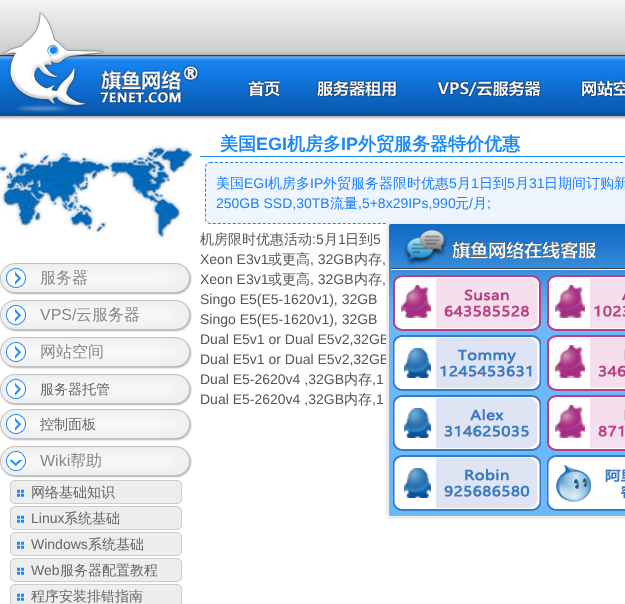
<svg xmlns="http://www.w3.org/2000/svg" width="625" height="604">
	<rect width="100%" height="100%" fill="#FFFFFF" />
	<image x="0" y="0" width="625" height="120" href="assets/img1.png" />
	<image x="3" y="12" width="196" height="101" href="assets/img2.png" />
	<image x="247" y="80" width="34" height="18" href="assets/img3.png" />
	<image x="316" y="79" width="81" height="19" href="assets/img4.png" />
	<image x="436" y="79" width="105" height="18" href="assets/img5.png" />
	<image x="581" y="79" width="44" height="18" href="assets/img6.png" />
	<image x="0" y="141" width="192" height="98" href="assets/img7.png" />
	<image x="0" y="263" width="192" height="32" href="assets/img8.png" />
	<text x="40" y="283" font-family="WenQuanYi Zen Hei" font-size="16" font-weight="500" fill="#888888">服务器</text>
	<image x="0" y="300" width="192" height="32" href="assets/img8.png" />
	<text x="40" y="320" font-family="Liberation Sans" font-size="16" fill="#888888">VPS/</text>
	<text x="76" y="320" font-family="WenQuanYi Zen Hei" font-size="16" font-weight="500" fill="#888888">云服务器</text>
	<image x="0" y="337" width="192" height="32" href="assets/img8.png" />
	<text x="40" y="357" font-family="WenQuanYi Zen Hei" font-size="16" font-weight="500" fill="#888888">网站空间</text>
	<image x="0" y="374" width="192" height="32" href="assets/img8.png" />
	<text x="40" y="394" font-family="WenQuanYi Zen Hei" font-size="14" font-weight="500" fill="#666666">服务器托管</text>
	<image x="0" y="409" width="192" height="32" href="assets/img8.png" />
	<text x="40" y="429" font-family="WenQuanYi Zen Hei" font-size="14" font-weight="500" fill="#666666">控制面板</text>
	<image x="0" y="446" width="192" height="32" href="assets/img9.png" />
	<text x="40" y="466" font-family="Liberation Sans" font-size="16" fill="#888888">Wiki</text>
	<text x="70" y="466" font-family="WenQuanYi Zen Hei" font-size="16" font-weight="500" fill="#888888">帮助</text>
	<rect x="10" y="480" width="172" height="24" rx="5" fill="#EEEEEE" />
	<image x="17" y="489" width="7" height="8" href="assets/img10.png" />
	<rect x="10.5" y="480.5" width="171" height="23" rx="4.5" fill="none" stroke="#CCCCCC" />
	<text x="31" y="497" font-family="WenQuanYi Zen Hei" font-size="14" font-weight="500" fill="#666666">网络基础知识</text>
	<rect x="10" y="506" width="172" height="24" rx="5" fill="#EEEEEE" />
	<image x="17" y="515" width="7" height="8" href="assets/img10.png" />
	<rect x="10.5" y="506.5" width="171" height="23" rx="4.5" fill="none" stroke="#CCCCCC" />
	<text x="31" y="523" font-family="Liberation Sans" font-size="14" fill="#666666">Linux</text>
	<text x="64" y="523" font-family="WenQuanYi Zen Hei" font-size="14" font-weight="500" fill="#666666">系统基础</text>
	<rect x="10" y="532" width="172" height="24" rx="5" fill="#EEEEEE" />
	<image x="17" y="541" width="7" height="8" href="assets/img10.png" />
	<rect x="10.5" y="532.5" width="171" height="23" rx="4.5" fill="none" stroke="#CCCCCC" />
	<text x="31" y="549" font-family="Liberation Sans" font-size="14" fill="#666666">Windows</text>
	<text x="88" y="549" font-family="WenQuanYi Zen Hei" font-size="14" font-weight="500" fill="#666666">系统基础</text>
	<rect x="10" y="558" width="172" height="24" rx="5" fill="#EEEEEE" />
	<image x="17" y="567" width="7" height="8" href="assets/img10.png" />
	<rect x="10.5" y="558.5" width="171" height="23" rx="4.5" fill="none" stroke="#CCCCCC" />
	<text x="31" y="575" font-family="Liberation Sans" font-size="14" fill="#666666">Web</text>
	<text x="60" y="575" font-family="WenQuanYi Zen Hei" font-size="14" font-weight="500" fill="#666666">服务器配置教程</text>
	<rect x="10" y="584" width="172" height="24" rx="5" fill="#EEEEEE" />
	<image x="17" y="593" width="7" height="8" href="assets/img10.png" />
	<rect x="10.5" y="584.5" width="171" height="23" rx="4.5" fill="none" stroke="#CCCCCC" />
	<text x="31" y="601" font-family="WenQuanYi Zen Hei" font-size="14" font-weight="500" fill="#666666">程序安装排错指南</text>
	<rect x="200" y="156" width="425" height="1" fill="#1889F8" />
	<text x="220" y="150" font-family="WenQuanYi Zen Hei" font-size="18" font-weight="700" fill="#1889F8">美国</text>
	<text x="256" y="150" font-family="Liberation Sans" font-size="18" font-weight="700" fill="#1889F8">EGI</text>
	<text x="287" y="150" font-family="WenQuanYi Zen Hei" font-size="18" font-weight="700" fill="#1889F8">机房多</text>
	<text x="341" y="150" font-family="Liberation Sans" font-size="18" font-weight="700" fill="#1889F8">IP</text>
	<text x="358" y="150" font-family="WenQuanYi Zen Hei" font-size="18" font-weight="700" fill="#1889F8">外贸服务器特价优惠</text>
	<rect x="205" y="162" width="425" height="62" rx="5" fill="#EFF5FE" />
	<path d="M210 162.5H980C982.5 162.5 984.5 164.5 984.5 167V219C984.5 221.5 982.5 223.5 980 223.5H210C207.5 223.5 205.5 221.5 205.5 219V167C205.5 164.5 207.5 162.5 210 162.5Z" fill="none" stroke="#1889F8" stroke-dasharray="3 2" />
	<text x="216" y="188" font-family="WenQuanYi Zen Hei" font-size="14" font-weight="500" fill="#1880F9">美国</text>
	<text x="244" y="188" font-family="Liberation Sans" font-size="14" fill="#1880F9">EGI</text>
	<text x="268" y="188" font-family="WenQuanYi Zen Hei" font-size="14" font-weight="500" fill="#1880F9">机房多</text>
	<text x="310" y="188" font-family="Liberation Sans" font-size="14" fill="#1880F9">IP</text>
	<text x="323" y="188" font-family="WenQuanYi Zen Hei" font-size="14" font-weight="500" fill="#1880F9">外贸服务器限时优惠</text>
	<text x="449" y="188" font-family="Liberation Sans" font-size="14" fill="#1880F9">5</text>
	<text x="457" y="188" font-family="WenQuanYi Zen Hei" font-size="14" font-weight="500" fill="#1880F9">月</text>
	<text x="471" y="188" font-family="Liberation Sans" font-size="14" fill="#1880F9">1</text>
	<text x="479" y="188" font-family="WenQuanYi Zen Hei" font-size="14" font-weight="500" fill="#1880F9">日到</text>
	<text x="507" y="188" font-family="Liberation Sans" font-size="14" fill="#1880F9">5</text>
	<text x="515" y="188" font-family="WenQuanYi Zen Hei" font-size="14" font-weight="500" fill="#1880F9">月</text>
	<text x="529" y="188" font-family="Liberation Sans" font-size="14" fill="#1880F9">31</text>
	<text x="544" y="188" font-family="WenQuanYi Zen Hei" font-size="14" font-weight="500" fill="#1880F9">日期间订购新</text>
	<text x="216" y="208" font-family="Liberation Sans" font-size="14" fill="#1880F9">250GB SSD,30TB</text>
	<text x="330" y="208" font-family="WenQuanYi Zen Hei" font-size="14" font-weight="500" fill="#1880F9">流量</text>
	<text x="358" y="208" font-family="Liberation Sans" font-size="14" fill="#1880F9">,5+8x29IPs,990</text>
	<text x="455" y="208" font-family="WenQuanYi Zen Hei" font-size="14" font-weight="500" fill="#1880F9">元</text>
	<text x="469" y="208" font-family="Liberation Sans" font-size="14" fill="#1880F9">/</text>
	<text x="473" y="208" font-family="WenQuanYi Zen Hei" font-size="14" font-weight="500" fill="#1880F9">月</text>
	<text x="487" y="208" font-family="Liberation Sans" font-size="14" fill="#1880F9">;</text>
	<text x="200" y="244" font-family="WenQuanYi Zen Hei" font-size="14" font-weight="500" fill="#555555">机房限时优惠活动</text>
	<text x="312" y="244" font-family="Liberation Sans" font-size="14" fill="#555555">:5</text>
	<text x="324" y="244" font-family="WenQuanYi Zen Hei" font-size="14" font-weight="500" fill="#555555">月</text>
	<text x="338" y="244" font-family="Liberation Sans" font-size="14" fill="#555555">1</text>
	<text x="345" y="244" font-family="WenQuanYi Zen Hei" font-size="14" font-weight="500" fill="#555555">日到</text>
	<g font-family="Liberation Sans" font-size="14" fill="#555555">
		<text x="373" y="244">5</text>
		<text x="200" y="264">Xeon E3v1</text>
	</g>
	<text x="268" y="264" font-family="WenQuanYi Zen Hei" font-size="14" font-weight="500" fill="#555555">或更高</text>
	<text x="310" y="264" font-family="Liberation Sans" font-size="14" fill="#555555">, 32GB</text>
	<text x="354" y="264" font-family="WenQuanYi Zen Hei" font-size="14" font-weight="500" fill="#555555">内存</text>
	<g font-family="Liberation Sans" font-size="14" fill="#555555">
		<text x="382" y="264">,</text>
		<text x="200" y="284">Xeon E3v1</text>
	</g>
	<text x="268" y="284" font-family="WenQuanYi Zen Hei" font-size="14" font-weight="500" fill="#555555">或更高</text>
	<text x="310" y="284" font-family="Liberation Sans" font-size="14" fill="#555555">, 32GB</text>
	<text x="354" y="284" font-family="WenQuanYi Zen Hei" font-size="14" font-weight="500" fill="#555555">内存</text>
	<g font-family="Liberation Sans" font-size="14" fill="#555555">
		<text x="382" y="284">,</text>
		<text x="200" y="304">Singo E5(E5-1620v1), 32GB</text>
		<text x="200" y="324">Singo E5(E5-1620v1), 32GB</text>
		<text x="200" y="344">Dual E5v1 or Dual E5v2,32GB</text>
		<text x="200" y="364">Dual E5v1 or Dual E5v2,32GB</text>
		<text x="200" y="384">Dual E5-2620v4 ,32GB</text>
	</g>
	<text x="344" y="384" font-family="WenQuanYi Zen Hei" font-size="14" font-weight="500" fill="#555555">内存</text>
	<g font-family="Liberation Sans" font-size="14" fill="#555555">
		<text x="372" y="384">,1</text>
		<text x="200" y="404">Dual E5-2620v4 ,32GB</text>
	</g>
	<text x="344" y="404" font-family="WenQuanYi Zen Hei" font-size="14" font-weight="500" fill="#555555">内存</text>
	<text x="372" y="404" font-family="Liberation Sans" font-size="14" fill="#555555">,1</text>
	<image x="386" y="221" width="239" height="54" href="assets/img11.png" />
	<rect x="389" y="328" width="236" height="187" fill="#6BB8FA" />
	<image x="389" y="275" width="167" height="53" href="assets/img12.png" />
	<rect x="386" y="275" width="3" height="240" fill="#EEEEEE" />
	<image x="393" y="275" width="148" height="56" href="assets/img13.png" />
	<image x="547" y="275" width="78" height="56" href="assets/img14.png" />
	<image x="393" y="335" width="148" height="56" href="assets/img15.png" />
	<image x="547" y="335" width="78" height="56" href="assets/img16.png" />
	<image x="393" y="395" width="148" height="56" href="assets/img17.png" />
	<image x="547" y="395" width="78" height="56" href="assets/img18.png" />
	<image x="393" y="455" width="148" height="56" href="assets/img19.png" />
	<image x="547" y="455" width="78" height="56" href="assets/img20.png" />
	<image x="386" y="515" width="239" height="4" href="assets/img21.png" />
</svg>
